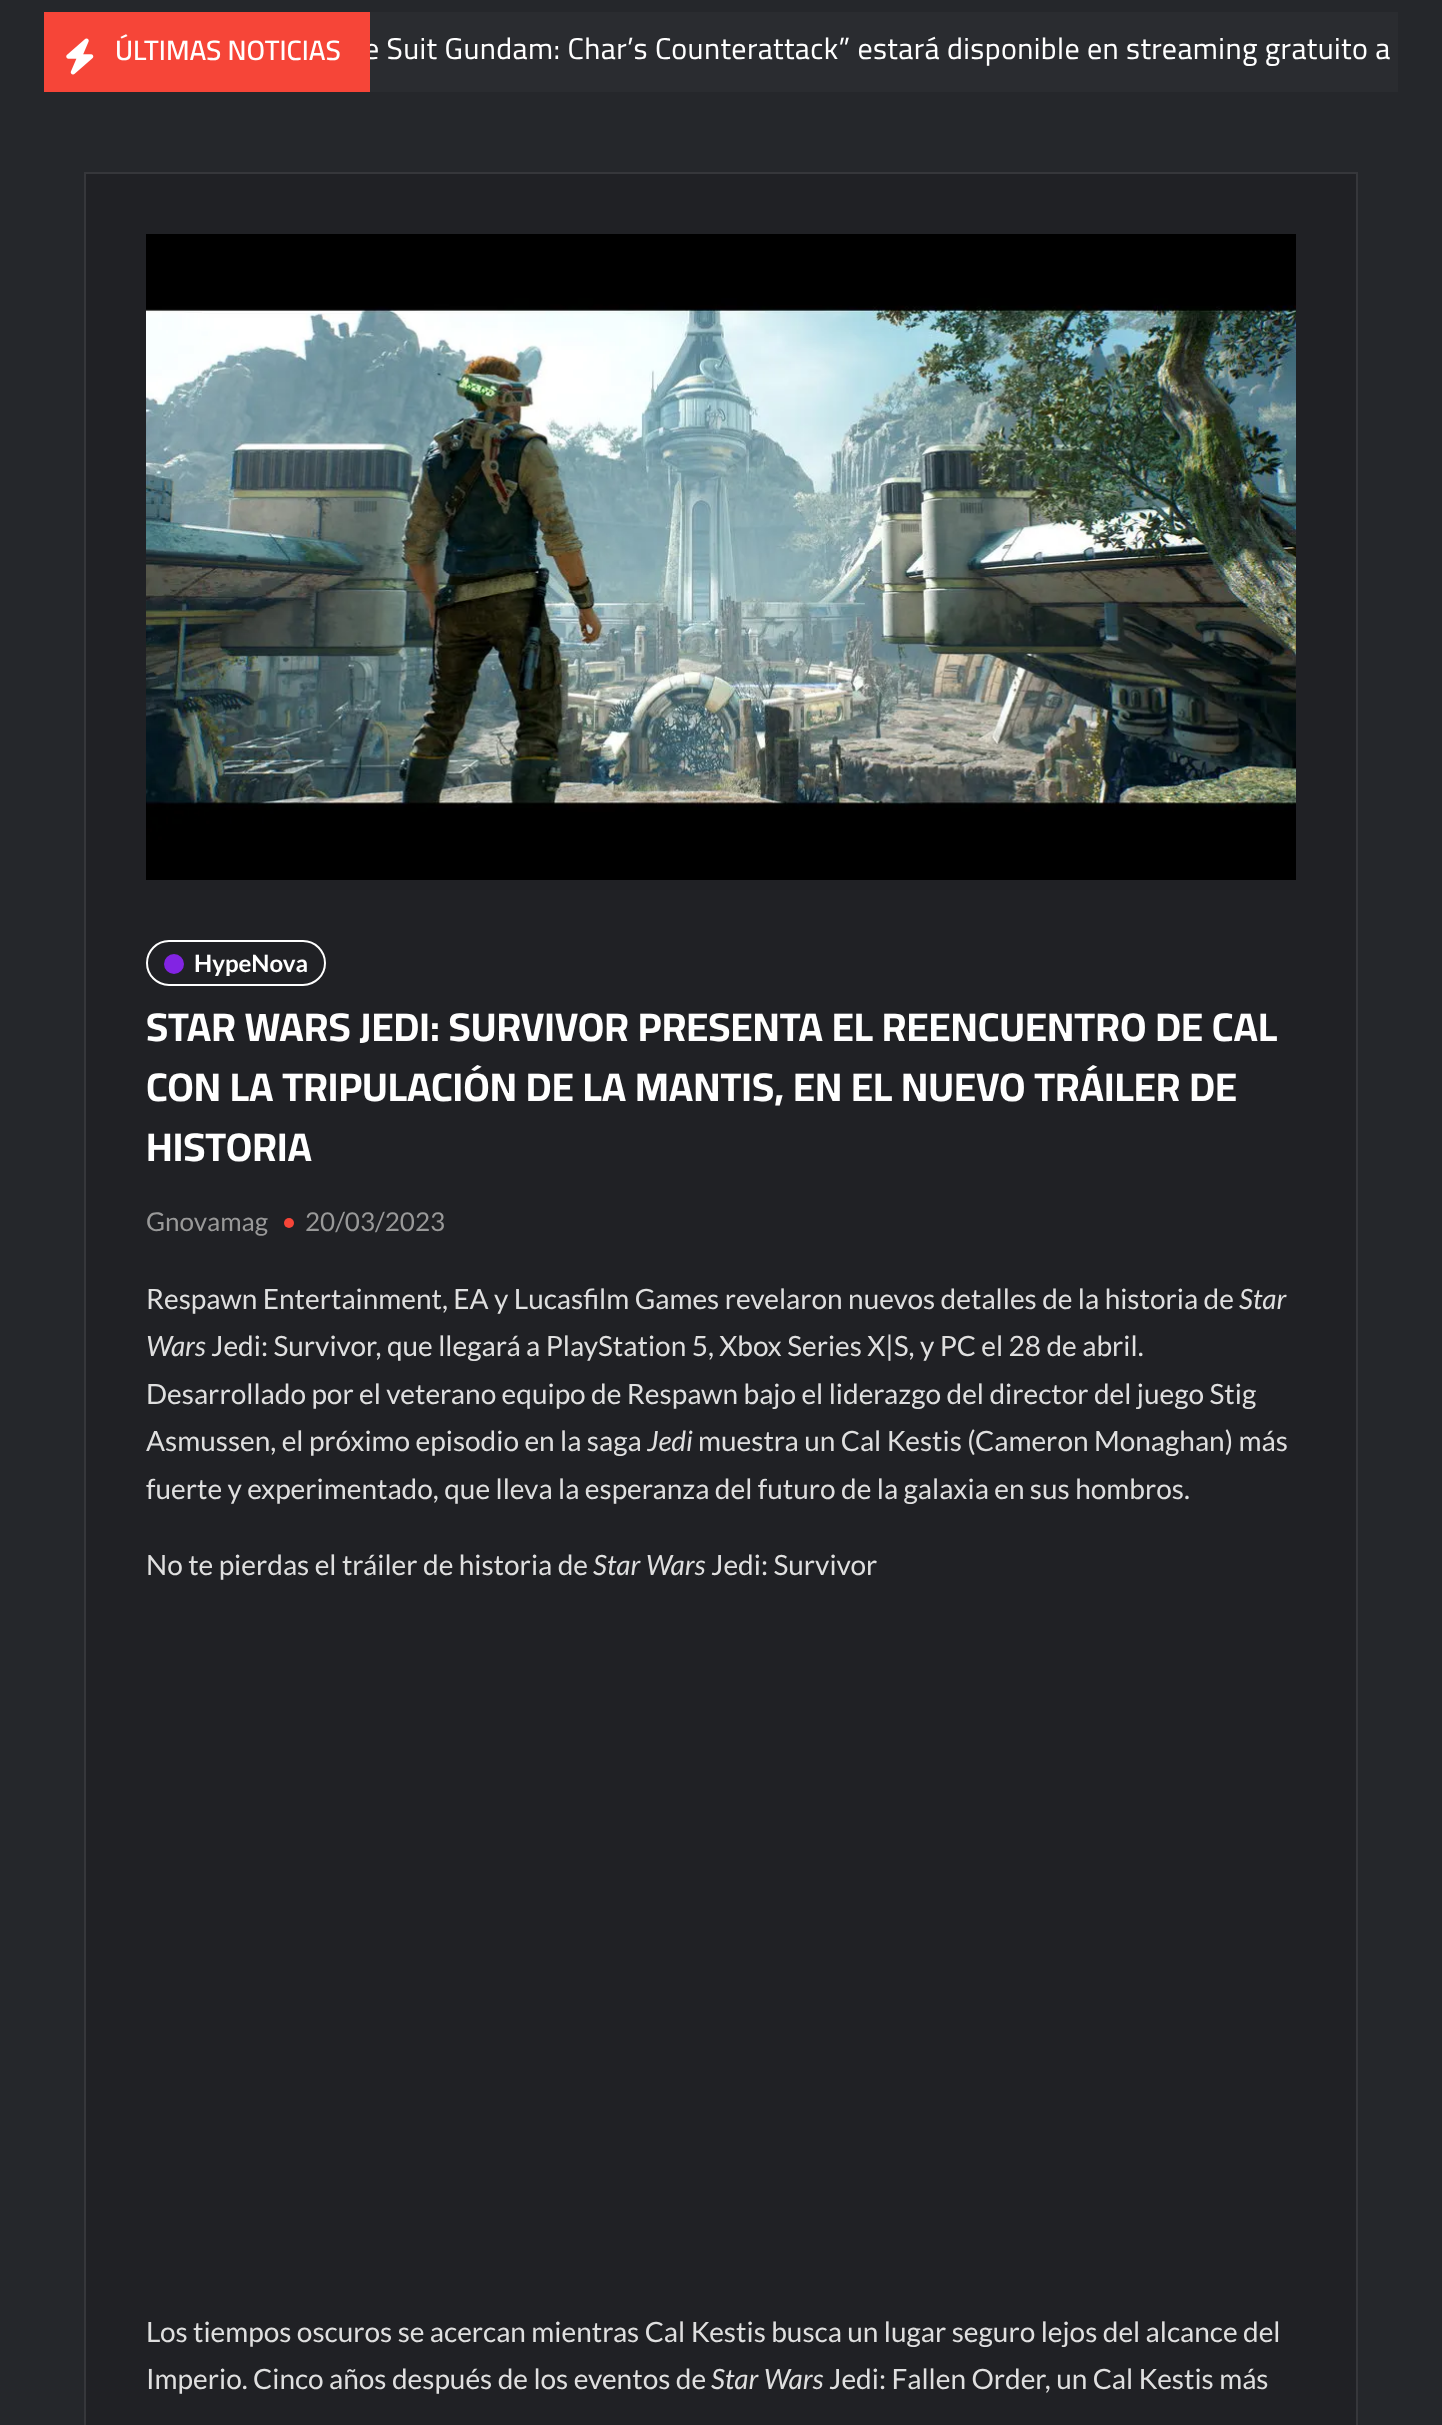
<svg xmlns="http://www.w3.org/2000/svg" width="1442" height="2425">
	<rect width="100%" height="100%" fill="#25272B" />
	<rect x="370" y="12" width="1028" height="80" fill="#2A2C30" />
	<text x="364" y="59" font-family="Cairo" font-size="30" letter-spacing="0.4" fill="#FFFFFF">e Suit Gundam: Char’s Counterattack” estará disponible en streaming gratuito a</text>
	<rect x="44" y="12" width="326" height="80" fill="#F64538" />
	<image x="66" y="38" width="28" height="37" href="assets/img1.png" />
	<text x="115" y="60" font-family="Cairo" font-size="28" font-weight="600" fill="#FFFFFF">ÚLTIMAS NOTICIAS</text>
	<rect x="85" y="173" width="1272" height="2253" fill="#202125" stroke="#36373B" stroke-width="2" />
	<image x="146" y="234" width="1150" height="646" href="assets/img2.png" />
	<rect x="147" y="941" width="178" height="44" rx="22" fill="none" stroke="#FFFFFF" stroke-width="2" />
	<circle cx="174" cy="964" r="10" fill="#8224E3" />
	<text x="194" y="972" font-family="Lato" font-size="24" font-weight="700" fill="#FFFFFF">HypeNova</text>
	<g font-family="Cairo" font-size="40" font-weight="700" fill="#FFFFFF">
		<text x="146" y="1041">STAR WARS JEDI: SURVIVOR PRESENTA EL REENCUENTRO DE CAL</text>
		<text x="146" y="1101">CON LA TRIPULACIÓN DE LA MANTIS, EN EL NUEVO TRÁILER DE</text>
		<text x="146" y="1161">HISTORIA</text>
	</g>
	<text x="146" y="1231" font-family="Lato" font-size="26" fill="#999999">Gnovamag</text>
	<circle cx="289" cy="1223" r="5" fill="#F64538" />
	<text x="305" y="1231" font-family="Lato" font-size="26" fill="#999999">20/03/2023</text>
	<text x="146" y="1309" font-family="Lato" font-size="28" fill="#DFDFDF">Respawn Entertainment, EA y Lucasfilm Games revelaron nuevos detalles de la historia de</text>
	<g font-family="Lato" font-size="28" font-style="italic" fill="#DFDFDF">
		<text x="1239" y="1309">Star</text>
		<text x="146" y="1356">Wars</text>
	</g>
	<g font-family="Lato" font-size="28" fill="#DFDFDF">
		<text x="211" y="1356">Jedi: Survivor, que llegará a PlayStation 5, Xbox Series X|S, y PC el 28 de abril.</text>
		<text x="146" y="1404">Desarrollado por el veterano equipo de Respawn bajo el liderazgo del director del juego Stig</text>
		<text x="146" y="1451">Asmussen, el próximo episodio en la saga</text>
	</g>
	<text x="647" y="1451" font-family="Lato" font-size="28" font-style="italic" fill="#DFDFDF">Jedi</text>
	<g font-family="Lato" font-size="28" fill="#DFDFDF">
		<text x="698" y="1451">muestra un Cal Kestis (Cameron Monaghan) más</text>
		<text x="146" y="1499">fuerte y experimentado, que lleva la esperanza del futuro de la galaxia en sus hombros.</text>
		<text x="146" y="1575">No te pierdas el tráiler de historia de</text>
	</g>
	<text x="593" y="1575" font-family="Lato" font-size="28" font-style="italic" fill="#DFDFDF">Star Wars</text>
	<g font-family="Lato" font-size="28" fill="#DFDFDF">
		<text x="711" y="1575">Jedi: Survivor</text>
		<text x="146" y="2342">Los tiempos oscuros se acercan mientras Cal Kestis busca un lugar seguro lejos del alcance del</text>
		<text x="146" y="2389">Imperio. Cinco años después de los eventos de</text>
	</g>
	<text x="711" y="2389" font-family="Lato" font-size="28" font-style="italic" fill="#DFDFDF">Star Wars</text>
	<text x="829" y="2389" font-family="Lato" font-size="28" fill="#DFDFDF">Jedi: Fallen Order, un Cal Kestis más</text>
</svg>
